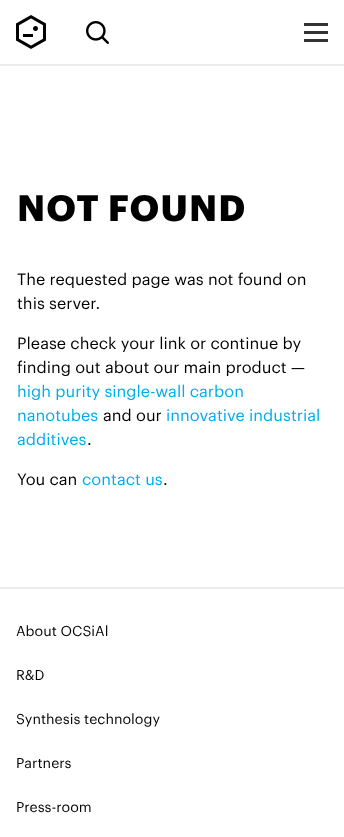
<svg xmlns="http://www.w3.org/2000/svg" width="344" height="837">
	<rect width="100%" height="100%" fill="#FFFFFF" />
	<image x="16" y="15" width="30" height="34" href="assets/img1.png" />
	<image x="86" y="21" width="23" height="23" href="assets/img2.png" />
	<rect x="304" y="31" width="24" height="3" fill="#333333" />
	<rect x="304" y="23" width="24" height="3" fill="#333333" />
	<rect x="304" y="39" width="24" height="3" fill="#333333" />
	<rect x="0" y="64" width="344" height="2" fill="#ECECEC" />
	<text x="17" y="221" font-family="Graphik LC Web" font-size="36" font-weight="700" letter-spacing="1" fill="#000000">NOT FOUND</text>
	<g font-family="Graphik LC Web" font-size="16" fill="#000000">
		<text x="17" y="285">The requested page was not found on</text>
		<text x="17" y="309">this server.</text>
		<text x="17" y="349">Please check your link or continue by</text>
		<text x="17" y="373">finding out about our main product —</text>
	</g>
	<g font-family="Graphik LC Web" font-size="16" fill="#00ACE9">
		<text x="17" y="397">high purity single-wall carbon</text>
		<text x="17" y="421">nanotubes</text>
	</g>
	<text x="103" y="421" font-family="Graphik LC Web" font-size="16" fill="#000000">and our</text>
	<g font-family="Graphik LC Web" font-size="16" fill="#00ACE9">
		<text x="166" y="421">innovative industrial</text>
		<text x="17" y="445">additives</text>
	</g>
	<g font-family="Graphik LC Web" font-size="16" fill="#000000">
		<text x="87" y="445">.</text>
		<text x="17" y="485">You can</text>
	</g>
	<text x="82" y="485" font-family="Graphik LC Web" font-size="16" fill="#00ACE9">contact us</text>
	<text x="163" y="485" font-family="Graphik LC Web" font-size="16" fill="#000000">.</text>
	<rect x="0" y="587" width="344" height="2" fill="#ECECEC" />
	<g font-family="Graphik LC Web" font-size="14" fill="#000000">
		<text x="16" y="636">About OCSiAl</text>
		<text x="16" y="680">R&amp;D</text>
		<text x="16" y="724">Synthesis technology</text>
		<text x="16" y="768">Partners</text>
		<text x="16" y="812">Press-room</text>
	</g>
</svg>
